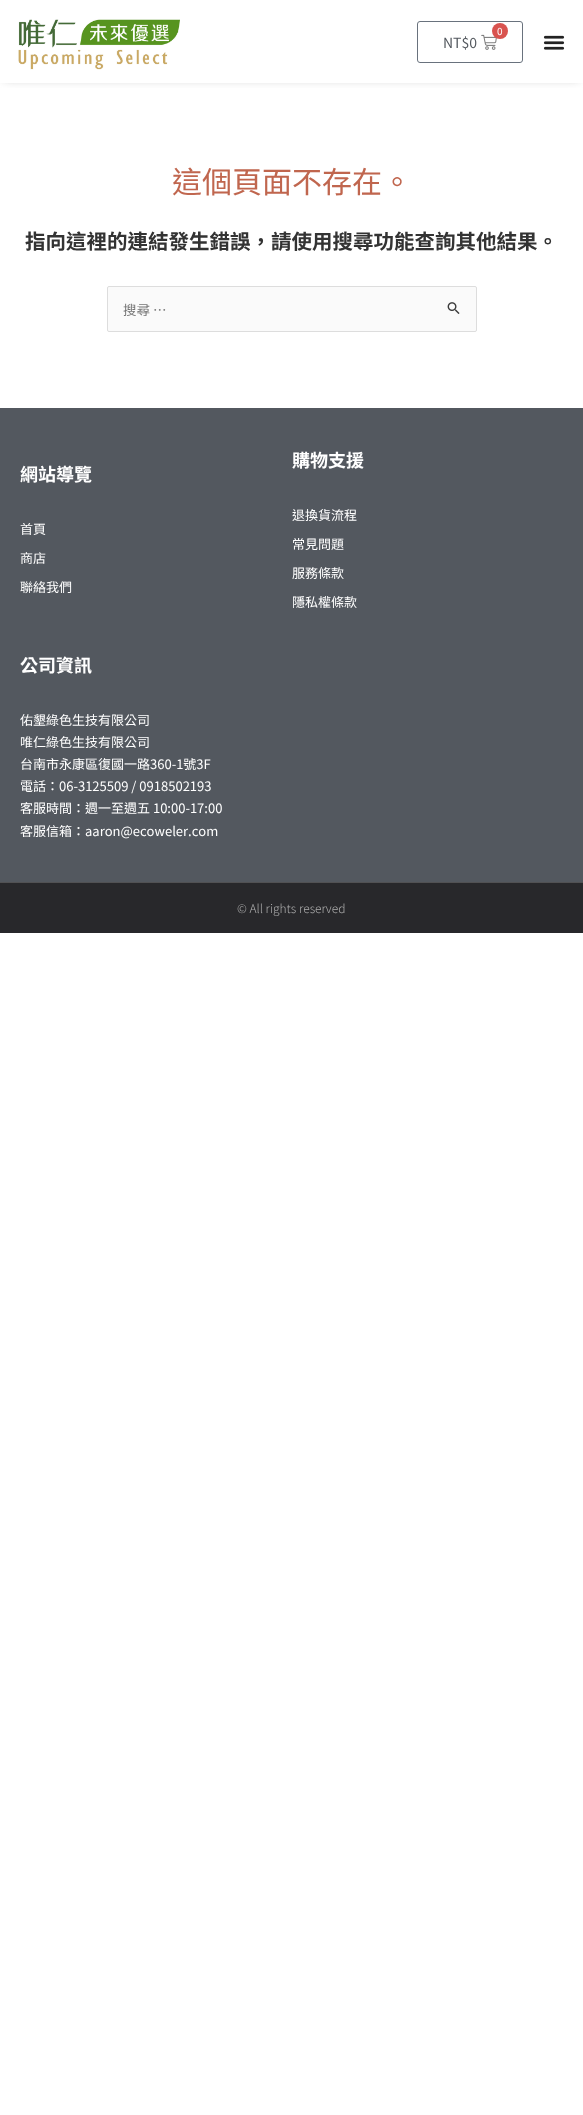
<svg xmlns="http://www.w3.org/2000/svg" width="583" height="2115">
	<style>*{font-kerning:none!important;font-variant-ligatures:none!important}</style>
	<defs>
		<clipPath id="clip1"><rect x="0" y="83" width="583" height="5" /></clipPath>
	</defs>
	<rect width="100%" height="100%" fill="#FFFFFF" />
	<g clip-path="url(#clip1)">
		<rect x="4" y="4" width="575" height="75" fill="#686868" fill-opacity="0.5" filter="blur(5px)" />
	</g>
	<image x="18" y="19" width="162" height="51" href="assets/img1.png" />
	<rect x="417.5" y="21.5" width="105" height="41" rx="2.5" fill="none" stroke="#69727D" />
	<image x="481" y="34" width="16" height="16" href="assets/img2.png" />
	<circle cx="500" cy="31" r="8" fill="#D9534F" />
	<text x="497" y="35" font-family="Noto Sans TC" font-size="10" fill="#FFFFFF">0</text>
	<text x="443" y="48" font-family="Noto Sans TC" font-size="14" fill="#54595F">NT$0</text>
	<image x="543" y="35" width="22" height="15" href="assets/img3.png" />
	<text x="172" y="193" font-family="Noto Sans TC" font-size="30" fill="#C0664E">這個頁面不存在。</text>
	<text x="25" y="249" font-family="Noto Sans TC" font-size="20.5" font-weight="700" fill="#333333">指向這裡的連結發生錯誤，請使用搜尋功能查詢其他結果。</text>
	<rect x="107.5" y="286.5" width="369" height="45" rx="1.5" fill="#FAFAFA" stroke="#DDDDDD" />
	<text x="123" y="315" font-family="Noto Sans TC" font-size="13.5" fill="#757575">搜尋 …</text>
	<image x="447" y="302" width="13" height="12" href="assets/img4.png" />
	<rect x="0" y="408" width="583" height="474" fill="#53585F" />
	<text x="20" y="481" font-family="Noto Sans TC" font-size="18" font-weight="700" fill="#FFFFFF">網站導覽</text>
	<g font-family="Noto Sans TC" font-size="13" fill="#FFFFFF">
		<text x="20" y="534">首頁</text>
		<text x="20" y="563">商店</text>
		<text x="20" y="592">聯絡我們</text>
	</g>
	<text x="292" y="467" font-family="Noto Sans TC" font-size="18" font-weight="700" fill="#FFFFFF">購物支援</text>
	<g font-family="Noto Sans TC" font-size="13" fill="#FFFFFF">
		<text x="292" y="520">退換貨流程</text>
		<text x="292" y="549">常見問題</text>
		<text x="292" y="578">服務條款</text>
		<text x="292" y="607">隱私權條款</text>
	</g>
	<text x="20" y="672" font-family="Noto Sans TC" font-size="18" font-weight="700" fill="#FFFFFF">公司資訊</text>
	<g font-family="Noto Sans TC" font-size="13" fill="#FFFFFF">
		<text x="20" y="725">佑墾綠色生技有限公司</text>
		<text x="20" y="747">唯仁綠色生技有限公司</text>
		<text x="20" y="769">台南市永康區復國一路360-1號3F</text>
		<text x="20" y="791">電話：06-3125509 / 0918502193</text>
		<text x="20" y="813">客服時間：週一至週五 10:00-17:00</text>
		<text x="20" y="836">客服信箱：aaron@ecoweler.com</text>
	</g>
	<rect x="0" y="883" width="583" height="50" fill="#28282B" />
	<rect x="0" y="882" width="583" height="1" fill="#515153" />
	<text x="237" y="913" font-family="Noto Sans TC" font-size="12" font-weight="300" fill="#ADADAD">© All rights reserved</text>
</svg>
